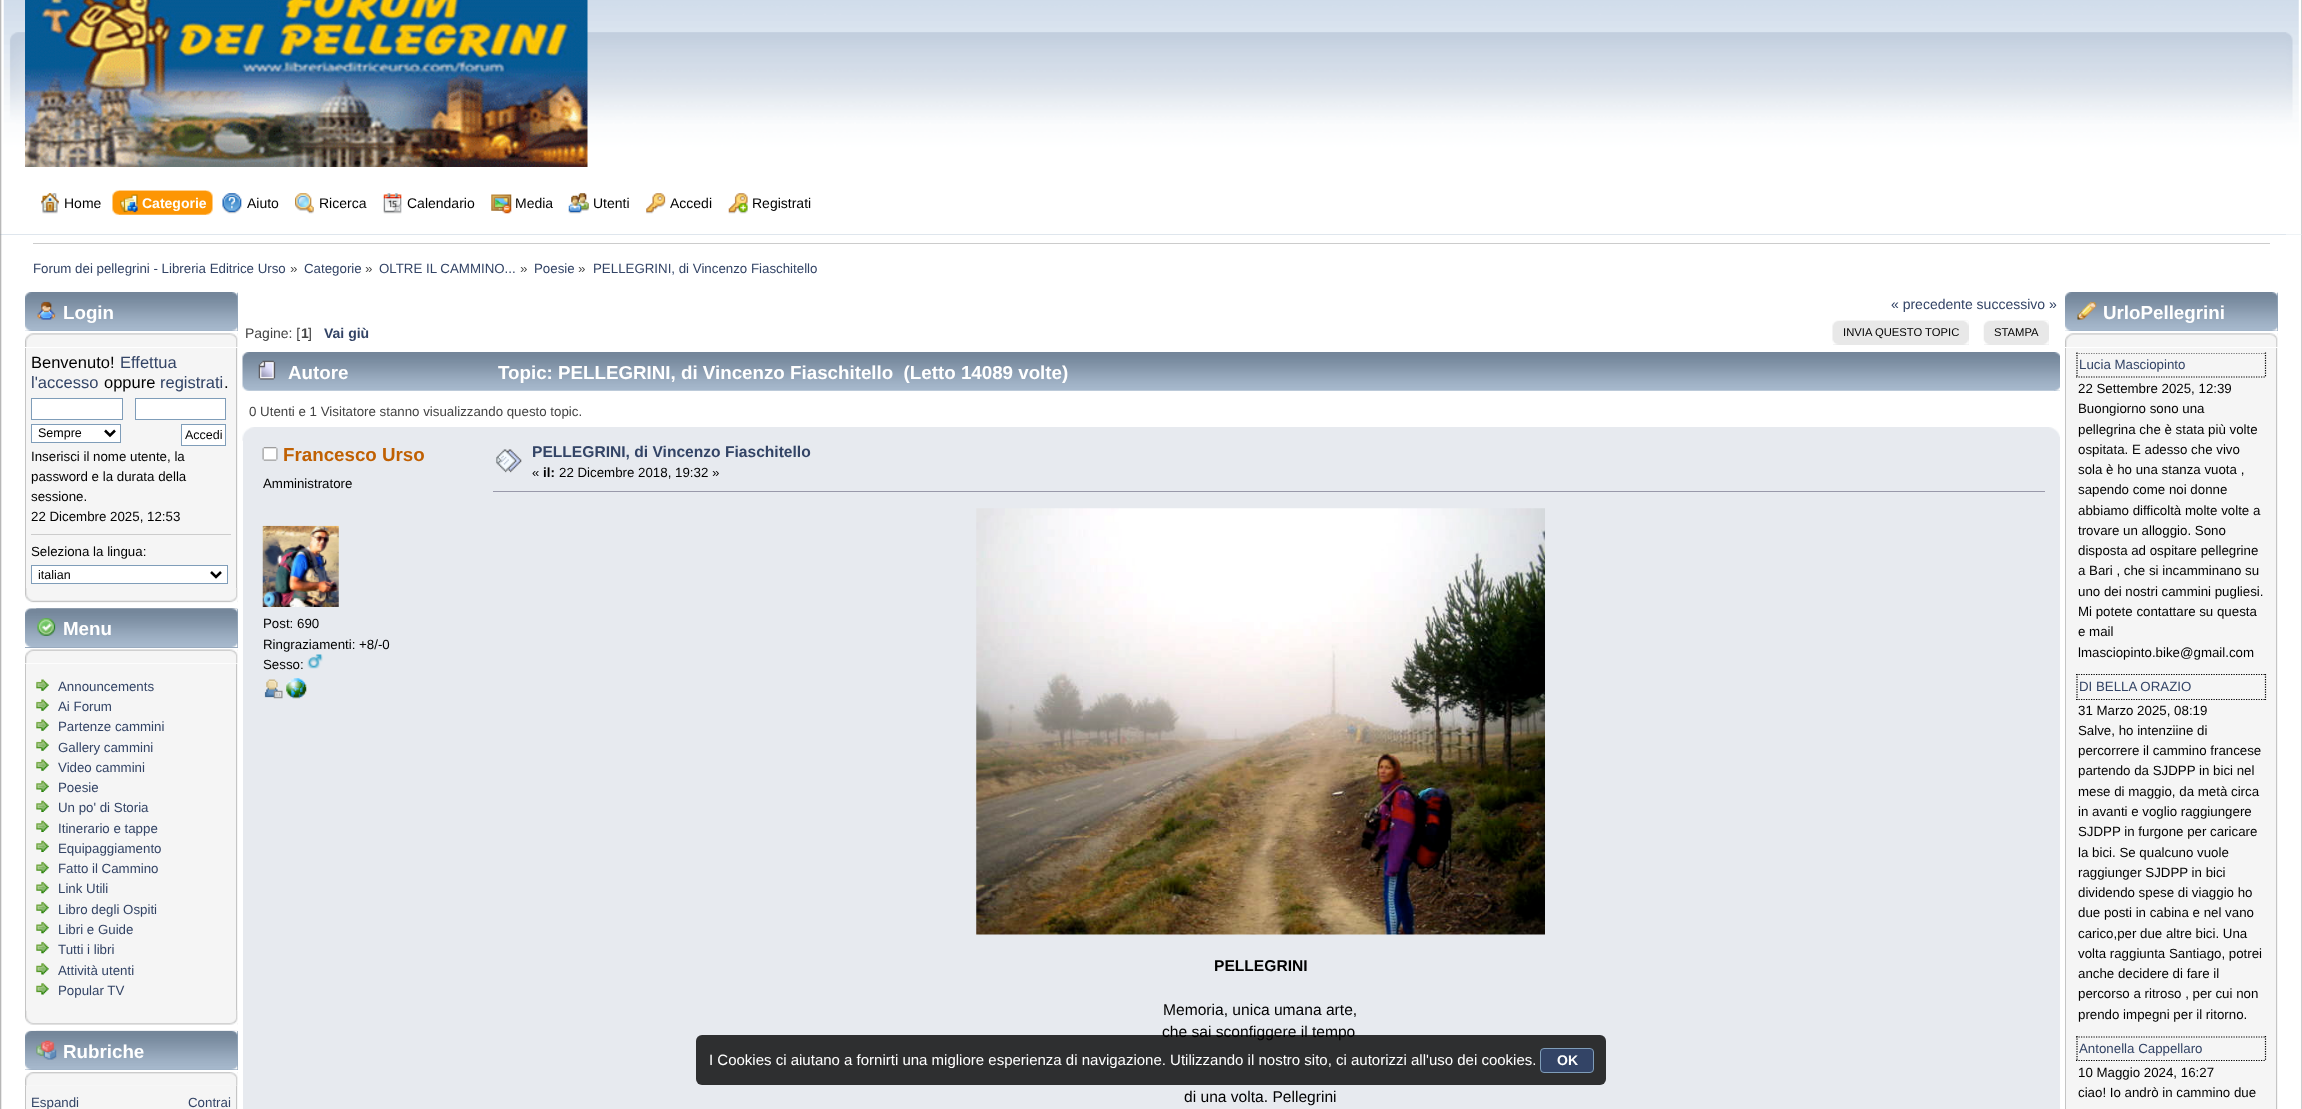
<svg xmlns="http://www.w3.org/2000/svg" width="2302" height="1109">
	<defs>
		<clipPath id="clip1"><rect x="2071" y="353" width="200" height="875" /></clipPath>
	</defs>
	<rect width="100%" height="100%" fill="#FFFFFF" />
	<image x="0" y="234" width="2302" height="1" href="assets/img1.png" />
	<image x="0" y="0" width="2302" height="235" href="assets/img2.png" />
	<image x="2286" y="0" width="16" height="235" href="assets/img3.png" />
	<image x="25" y="0" width="563" height="167" href="assets/img4.png" />
	<image x="41" y="193" width="18" height="21" href="assets/img5.png" />
	<text x="64" y="208" font-family="Liberation Sans" font-size="14" fill="#000000">Home</text>
	<image x="118" y="190" width="95" height="25" href="assets/img6.png" />
	<image x="112" y="190" width="95" height="25" href="assets/img7.png" />
	<image x="120" y="194" width="18" height="19" href="assets/img8.png" />
	<text x="142" y="208" font-family="Liberation Sans" font-size="14" font-weight="700" fill="#FFFFFF">Categorie</text>
	<image x="222" y="193" width="20" height="21" href="assets/img9.png" />
	<text x="247" y="208" font-family="Liberation Sans" font-size="14" fill="#000000">Aiuto</text>
	<image x="295" y="193" width="19" height="21" href="assets/img10.png" />
	<text x="319" y="208" font-family="Liberation Sans" font-size="14" fill="#000000">Ricerca</text>
	<image x="383" y="193" width="19" height="21" href="assets/img11.png" />
	<text x="407" y="208" font-family="Liberation Sans" font-size="14" fill="#000000">Calendario</text>
	<image x="491" y="194" width="21" height="20" href="assets/img12.png" />
	<text x="515" y="208" font-family="Liberation Sans" font-size="14" fill="#000000">Media</text>
	<image x="568" y="193" width="21" height="21" href="assets/img13.png" />
	<text x="593" y="208" font-family="Liberation Sans" font-size="14" fill="#000000">Utenti</text>
	<image x="646" y="193" width="20" height="21" href="assets/img14.png" />
	<text x="670" y="208" font-family="Liberation Sans" font-size="14" fill="#000000">Accedi</text>
	<image x="728" y="193" width="20" height="21" href="assets/img15.png" />
	<text x="752" y="208" font-family="Liberation Sans" font-size="14" fill="#000000">Registrati</text>
	<image x="0" y="234" width="2302" height="875" href="assets/img16.png" />
	<image x="2301" y="234" width="1" height="875" href="assets/img17.png" />
	<rect x="33" y="243" width="2237" height="1" fill="#CCCCCC" />
	<text x="33" y="273" font-family="Liberation Sans" font-size="13.3" fill="#334466">Forum dei pellegrini - Libreria Editrice Urso</text>
	<text x="290" y="273" font-family="Liberation Sans" font-size="13.3" fill="#444444">»</text>
	<text x="304" y="273" font-family="Liberation Sans" font-size="13.3" fill="#334466">Categorie</text>
	<text x="365" y="273" font-family="Liberation Sans" font-size="13.3" fill="#444444">»</text>
	<text x="379" y="273" font-family="Liberation Sans" font-size="13.3" fill="#334466">OLTRE IL CAMMINO...</text>
	<text x="520" y="273" font-family="Liberation Sans" font-size="13.3" fill="#444444">»</text>
	<text x="534" y="273" font-family="Liberation Sans" font-size="13.3" fill="#334466">Poesie</text>
	<text x="578" y="273" font-family="Liberation Sans" font-size="13.3" fill="#444444">»</text>
	<text x="593" y="273" font-family="Liberation Sans" font-size="13.3" fill="#334466">PELLEGRINI, di Vincenzo Fiaschitello</text>
	<rect x="25" y="293" width="213" height="38" fill="#99ABBF" />
	<image x="25" y="292" width="213" height="39" href="assets/img18.png" />
	<image x="232" y="292" width="6" height="39" href="assets/img19.png" />
	<image x="37" y="301" width="19" height="19" href="assets/img20.png" />
	<text x="63" y="319" font-family="Liberation Sans" font-size="18.75" font-weight="700" fill="#FFFFFF">Login</text>
	<image x="25" y="333" width="213" height="14" href="assets/img21.png" />
	<image x="230" y="333" width="8" height="14" href="assets/img22.png" />
	<rect x="26" y="348" width="212" height="241" fill="#F5F5F5" />
	<rect x="236" y="348" width="1" height="241" fill="#C5C5C5" />
	<rect x="25" y="348" width="1" height="241" fill="#C5C5C5" />
	<text x="31" y="368" font-family="Liberation Sans" font-size="16.5" fill="#000000">Benvenuto!</text>
	<g font-family="Liberation Sans" font-size="16.5" fill="#334466">
		<text x="120" y="368">Effettua</text>
		<text x="31" y="388">l'accesso</text>
	</g>
	<text x="104" y="388" font-family="Liberation Sans" font-size="16.5" fill="#000000">oppure</text>
	<text x="160" y="388" font-family="Liberation Sans" font-size="16.5" fill="#334466">registrati</text>
	<text x="224" y="388" font-family="Liberation Sans" font-size="16.5" fill="#000000">.</text>
	<rect x="31.5" y="398.5" width="91" height="21" fill="#FFFFFF" stroke="#7F9DB9" />
	<rect x="135.5" y="398.5" width="90" height="21" fill="#FFFFFF" stroke="#7F9DB9" />
	<rect x="31.5" y="424.5" width="89" height="18" fill="#FFFFFF" stroke="#7F9DB9" />
	<path d="M105 430.5L110 435.5L115 430.5" fill="none" stroke="#000000" stroke-width="2.5" />
	<text x="38" y="437" font-family="Liberation Sans" font-size="12.5" fill="#000000">Sempre</text>
	<rect x="181.5" y="424.5" width="44" height="21" fill="#FFFFFF" stroke="#7F9DB9" />
	<text x="185" y="439" font-family="Liberation Sans" font-size="12.5" fill="#000000">Accedi</text>
	<g font-family="Liberation Sans" font-size="13.3" fill="#000000">
		<text x="31" y="461">Inserisci il nome utente, la</text>
		<text x="31" y="481">password e la durata della</text>
		<text x="31" y="501">sessione.</text>
		<text x="31" y="521">22 Dicembre 2025, 12:53</text>
	</g>
	<rect x="31" y="534" width="200" height="1" fill="#CCCCCC" />
	<text x="31" y="556" font-family="Liberation Sans" font-size="13.3" fill="#000000">Seleziona la lingua:</text>
	<rect x="31.5" y="565.5" width="196" height="18" fill="#FFFFFF" stroke="#7F9DB9" />
	<path d="M211 572L216 577L221 572" fill="none" stroke="#000000" stroke-width="2.5" />
	<text x="38" y="579" font-family="Liberation Sans" font-size="12.5" fill="#000000">italian</text>
	<image x="25" y="588" width="213" height="15" href="assets/img23.png" />
	<image x="230" y="588" width="8" height="15" href="assets/img24.png" />
	<rect x="25" y="609" width="213" height="39" fill="#99ABBF" />
	<image x="25" y="608" width="213" height="39" href="assets/img25.png" />
	<image x="36" y="608" width="202" height="39" href="assets/img26.png" />
	<image x="37" y="618" width="19" height="18" href="assets/img27.png" />
	<text x="63" y="635" font-family="Liberation Sans" font-size="18.75" font-weight="700" fill="#FFFFFF">Menu</text>
	<image x="25" y="649" width="213" height="15" href="assets/img28.png" />
	<image x="230" y="649" width="8" height="15" href="assets/img29.png" />
	<rect x="26" y="664" width="212" height="347" fill="#F5F5F5" />
	<rect x="236" y="664" width="1" height="347" fill="#C5C5C5" />
	<rect x="25" y="664" width="1" height="347" fill="#C5C5C5" />
	<image x="36" y="679" width="13" height="12" href="assets/img30.png" />
	<text x="58" y="691" font-family="Liberation Sans" font-size="13.3" fill="#334466">Announcements</text>
	<image x="36" y="699" width="13" height="12" href="assets/img30.png" />
	<text x="58" y="711" font-family="Liberation Sans" font-size="13.3" fill="#334466">Ai Forum</text>
	<image x="36" y="719" width="13" height="12" href="assets/img31.png" />
	<text x="58" y="731" font-family="Liberation Sans" font-size="13.3" fill="#334466">Partenze cammini</text>
	<image x="36" y="739" width="13" height="12" href="assets/img30.png" />
	<text x="58" y="752" font-family="Liberation Sans" font-size="13.3" fill="#334466">Gallery cammini</text>
	<image x="36" y="759" width="13" height="12" href="assets/img30.png" />
	<text x="58" y="772" font-family="Liberation Sans" font-size="13.3" fill="#334466">Video cammini</text>
	<image x="36" y="780" width="13" height="12" href="assets/img32.png" />
	<text x="58" y="792" font-family="Liberation Sans" font-size="13.3" fill="#334466">Poesie</text>
	<image x="36" y="800" width="13" height="12" href="assets/img32.png" />
	<text x="58" y="812" font-family="Liberation Sans" font-size="13.3" fill="#334466">Un po' di Storia</text>
	<image x="36" y="820" width="13" height="12" href="assets/img32.png" />
	<text x="58" y="833" font-family="Liberation Sans" font-size="13.3" fill="#334466">Itinerario e tappe</text>
	<image x="36" y="840" width="13" height="12" href="assets/img32.png" />
	<text x="58" y="853" font-family="Liberation Sans" font-size="13.3" fill="#334466">Equipaggiamento</text>
	<image x="36" y="861" width="13" height="13" href="assets/img33.png" />
	<text x="58" y="873" font-family="Liberation Sans" font-size="13.3" fill="#334466">Fatto il Cammino</text>
	<image x="36" y="881" width="13" height="13" href="assets/img33.png" />
	<text x="58" y="893" font-family="Liberation Sans" font-size="13.3" fill="#334466">Link Utili</text>
	<image x="36" y="901" width="13" height="13" href="assets/img33.png" />
	<text x="58" y="914" font-family="Liberation Sans" font-size="13.3" fill="#334466">Libro degli Ospiti</text>
	<image x="36" y="921" width="13" height="13" href="assets/img33.png" />
	<text x="58" y="934" font-family="Liberation Sans" font-size="13.3" fill="#334466">Libri e Guide</text>
	<image x="36" y="941" width="13" height="13" href="assets/img33.png" />
	<text x="58" y="954" font-family="Liberation Sans" font-size="13.3" fill="#334466">Tutti i libri</text>
	<image x="36" y="963" width="13" height="12" href="assets/img34.png" />
	<text x="58" y="975" font-family="Liberation Sans" font-size="13.3" fill="#334466">Attività utenti</text>
	<image x="36" y="983" width="13" height="12" href="assets/img34.png" />
	<text x="58" y="995" font-family="Liberation Sans" font-size="13.3" fill="#334466">Popular TV</text>
	<image x="25" y="1010" width="213" height="15" href="assets/img35.png" />
	<image x="230" y="1011" width="8" height="14" href="assets/img36.png" />
	<rect x="25" y="1031" width="213" height="39" fill="#99ABBF" />
	<image x="25" y="1030" width="213" height="40" href="assets/img37.png" />
	<image x="36" y="1030" width="202" height="40" href="assets/img38.png" />
	<image x="36" y="1040" width="21" height="20" href="assets/img39.png" />
	<text x="63" y="1058" font-family="Liberation Sans" font-size="18.75" font-weight="700" fill="#FFFFFF">Rubriche</text>
	<image x="25" y="1072" width="213" height="14" href="assets/img40.png" />
	<image x="230" y="1072" width="8" height="14" href="assets/img41.png" />
	<rect x="26" y="1086" width="212" height="23" fill="#F5F5F5" />
	<rect x="236" y="1086" width="1" height="23" fill="#C5C5C5" />
	<rect x="25" y="1086" width="1" height="23" fill="#C5C5C5" />
	<g font-family="Liberation Sans" font-size="13.3" fill="#334466">
		<text x="31" y="1107">Espandi</text>
		<text x="188" y="1107">Contrai</text>
	</g>
	<text x="1891" y="309" font-family="Liberation Sans" font-size="14" fill="#334466">« precedente successivo »</text>
	<text x="245" y="338" font-family="Liberation Sans" font-size="14" fill="#444444">Pagine: [</text>
	<text x="301" y="338" font-family="Liberation Sans" font-size="14" font-weight="700" fill="#444444">1</text>
	<text x="308" y="338" font-family="Liberation Sans" font-size="14" fill="#444444">]</text>
	<text x="324" y="338" font-family="Liberation Sans" font-size="14" font-weight="700" fill="#334466">Vai giù</text>
	<rect x="1833" y="321" width="136" height="24" fill="#E8E8E8" />
	<image x="1832" y="320" width="136" height="25" href="assets/img42.png" />
	<image x="1843" y="320" width="126" height="25" href="assets/img43.png" />
	<text x="1843" y="336" font-family="Liberation Sans" font-size="11.25" fill="#000000">INVIA QUESTO TOPIC</text>
	<rect x="1984" y="321" width="65" height="24" fill="#E8E8E8" />
	<image x="1983" y="320" width="65" height="25" href="assets/img44.png" />
	<image x="1994" y="320" width="55" height="25" href="assets/img45.png" />
	<text x="1994" y="336" font-family="Liberation Sans" font-size="11.25" fill="#000000">STAMPA</text>
	<image x="242" y="352" width="1818" height="39" href="assets/img46.png" />
	<image x="2054" y="352" width="6" height="39" href="assets/img47.png" />
	<image x="258" y="360" width="18" height="20" href="assets/img48.png" />
	<g font-family="Liberation Sans" font-size="18.75" font-weight="700" fill="#FFFFFF">
		<text x="288" y="379">Autore</text>
		<text x="498" y="379" xml:space="preserve">Topic: PELLEGRINI, di Vincenzo Fiaschitello  (Letto 14089 volte)</text>
	</g>
	<text x="249" y="416" font-family="Liberation Sans" font-size="13.3" fill="#444444">0 Utenti e 1 Visitatore stanno visualizzando questo topic.</text>
	<rect x="243" y="440" width="1817" height="669" fill="#E7EAEF" />
	<image x="242" y="427" width="1818" height="14" href="assets/img49.png" />
	<image x="2049" y="427" width="11" height="10" href="assets/img50.png" />
	<image x="262" y="447" width="16" height="14" href="assets/img51.png" />
	<text x="283" y="461" font-family="Liberation Sans" font-size="18.75" font-weight="700" fill="#C06002">Francesco Urso</text>
	<text x="263" y="488" font-family="Liberation Sans" font-size="13.3" fill="#000000">Amministratore</text>
	<image x="262" y="525" width="77" height="82" href="assets/img52.png" />
	<g font-family="Liberation Sans" font-size="13.3" fill="#000000">
		<text x="263" y="628">Post: 690</text>
		<text x="263" y="649">Ringraziamenti: +8/-0</text>
		<text x="263" y="669">Sesso:</text>
	</g>
	<image x="307" y="654" width="16" height="15" href="assets/img53.png" />
	<image x="264" y="679" width="19" height="20" href="assets/img54.png" />
	<image x="286" y="678" width="21" height="21" href="assets/img55.png" />
	<image x="496" y="449" width="26" height="24" href="assets/img56.png" />
	<text x="532" y="457" font-family="Liberation Sans" font-size="15.6" font-weight="700" fill="#334466">PELLEGRINI, di Vincenzo Fiaschitello</text>
	<text x="532" y="477" font-family="Liberation Sans" font-size="13.3" fill="#000000">«</text>
	<text x="543" y="477" font-family="Liberation Sans" font-size="13.3" font-weight="700" fill="#000000">il:</text>
	<text x="559" y="477" font-family="Liberation Sans" font-size="13.3" fill="#000000">22 Dicembre 2018, 19:32 »</text>
	<rect x="493" y="491" width="1552" height="1" fill="#9999AA" />
	<image x="976" y="508" width="569" height="427" href="assets/img57.png" />
	<text x="1214" y="971" font-family="Liberation Sans" font-size="15.6" font-weight="700" fill="#000000">PELLEGRINI</text>
	<g font-family="Liberation Sans" font-size="15.6" fill="#000000">
		<text x="1163" y="1015">Memoria, unica umana arte,</text>
		<text x="1162" y="1037">che sai sconfiggere il tempo</text>
		<text x="1184" y="1102">di una volta. Pellegrini</text>
	</g>
	<rect x="2065" y="293" width="213" height="38" fill="#99ABBF" />
	<image x="2065" y="292" width="213" height="39" href="assets/img58.png" />
	<image x="2272" y="292" width="6" height="39" href="assets/img59.png" />
	<image x="2077" y="301" width="20" height="19" href="assets/img60.png" />
	<text x="2103" y="319" font-family="Liberation Sans" font-size="18.75" font-weight="700" fill="#FFFFFF">UrloPellegrini</text>
	<image x="2065" y="333" width="213" height="14" href="assets/img61.png" />
	<image x="2270" y="333" width="8" height="14" href="assets/img22.png" />
	<rect x="2066" y="348" width="212" height="761" fill="#F5F5F5" />
	<rect x="2276" y="348" width="1" height="761" fill="#C5C5C5" />
	<rect x="2065" y="348" width="1" height="761" fill="#C5C5C5" />
	<g clip-path="url(#clip1)">
		<path d="M2076 353H2266" fill="none" stroke="#000000" stroke-width="1.2" stroke-dasharray="1.25 1.25" />
	</g>
	<path d="M2265.5 352.5V377.5" fill="none" stroke="#000000" stroke-width="1.2" stroke-dasharray="1.25 1.25" />
	<path d="M2076 377H2266" fill="none" stroke="#000000" stroke-width="1.2" stroke-dasharray="1.25 1.25" />
	<path d="M2077 352.5V377.5" fill="none" stroke="#000000" stroke-width="1.2" stroke-dasharray="1.25 1.25" />
	<text x="2079" y="369" font-family="Liberation Sans" font-size="13.3" fill="#334466">Lucia Masciopinto</text>
	<g font-family="Liberation Sans" font-size="13.3" fill="#000000">
		<text x="2078" y="393">22 Settembre 2025, 12:39</text>
		<text x="2078" y="413">Buongiorno sono una</text>
		<text x="2078" y="434">pellegrina che è stata più volte</text>
		<text x="2078" y="454">ospitata. E adesso che vivo</text>
		<text x="2078" y="474">sola è ho una stanza vuota ,</text>
		<text x="2078" y="494">sapendo come noi donne</text>
		<text x="2078" y="515">abbiamo difficoltà molte volte a</text>
		<text x="2078" y="535">trovare un alloggio. Sono</text>
		<text x="2078" y="555">disposta ad ospitare pellegrine</text>
		<text x="2078" y="575">a Bari , che si incamminano su</text>
		<text x="2078" y="596">uno dei nostri cammini pugliesi.</text>
		<text x="2078" y="616">Mi potete contattare su questa</text>
		<text x="2078" y="636">e mail</text>
		<text x="2078" y="657">lmasciopinto.bike@gmail.com</text>
	</g>
	<path d="M2076 674.5H2266" fill="none" stroke="#000000" stroke-width="1.2" stroke-dasharray="1.25 1.25" />
	<path d="M2265.5 674V700" fill="none" stroke="#000000" stroke-width="1.2" stroke-dasharray="1.25 1.25" />
	<path d="M2076 699.5H2266" fill="none" stroke="#000000" stroke-width="1.2" stroke-dasharray="1.25 1.25" />
	<path d="M2077 674V700" fill="none" stroke="#000000" stroke-width="1.2" stroke-dasharray="1.25 1.25" />
	<text x="2079" y="691" font-family="Liberation Sans" font-size="13.3" fill="#334466">DI BELLA ORAZIO</text>
	<g font-family="Liberation Sans" font-size="13.3" fill="#000000">
		<text x="2078" y="715">31 Marzo 2025, 08:19</text>
		<text x="2078" y="735">Salve, ho intenziine di</text>
		<text x="2078" y="755">percorrere il cammino francese</text>
		<text x="2078" y="775">partendo da SJDPP in bici nel</text>
		<text x="2078" y="796">mese di maggio, da metà circa</text>
		<text x="2078" y="816">in avanti e voglio raggiungere</text>
		<text x="2078" y="836">SJDPP in furgone per caricare</text>
		<text x="2078" y="857">la bici. Se qualcuno vuole</text>
		<text x="2078" y="877">raggiunger SJDPP in bici</text>
		<text x="2078" y="897">dividendo spese di viaggio ho</text>
		<text x="2078" y="917">due posti in cabina e nel vano</text>
		<text x="2078" y="938">carico,per due altre bici. Una</text>
		<text x="2078" y="958">volta raggiunta Santiago, potrei</text>
		<text x="2078" y="978">anche decidere di fare il</text>
		<text x="2078" y="998">percorso a ritroso , per cui non</text>
		<text x="2078" y="1019">prendo impegni per il ritorno.</text>
	</g>
	<path d="M2076 1037H2266" fill="none" stroke="#000000" stroke-width="1.2" stroke-dasharray="1.25 1.25" />
	<path d="M2265.5 1036V1061" fill="none" stroke="#000000" stroke-width="1.2" stroke-dasharray="1.25 1.25" />
	<path d="M2076 1060.5H2266" fill="none" stroke="#000000" stroke-width="1.2" stroke-dasharray="1.25 1.25" />
	<path d="M2077 1036V1061" fill="none" stroke="#000000" stroke-width="1.2" stroke-dasharray="1.25 1.25" />
	<text x="2079" y="1053" font-family="Liberation Sans" font-size="13.3" fill="#334466">Antonella Cappellaro</text>
	<g font-family="Liberation Sans" font-size="13.3" fill="#000000">
		<text x="2078" y="1077">10 Maggio 2024, 16:27</text>
		<text x="2078" y="1097">ciao! Io andrò in cammino due</text>
	</g>
	<rect x="696" y="1035" width="910" height="50" rx="6" fill="#000000" fill-opacity="0.8" />
	<text x="709" y="1065" font-family="Liberation Sans" font-size="15" fill="#FFFFFF">I Cookies ci aiutano a fornirti una migliore esperienza di navigazione. Utilizzando il nostro sito, ci autorizzi all'uso dei cookies.</text>
	<rect x="1540.5" y="1048.5" width="53" height="24" rx="3.5" fill="#334466" stroke="#7F9DB9" />
	<text x="1557" y="1065" font-family="Liberation Sans" font-size="14" font-weight="700" fill="#FFFFFF">OK</text>
</svg>
